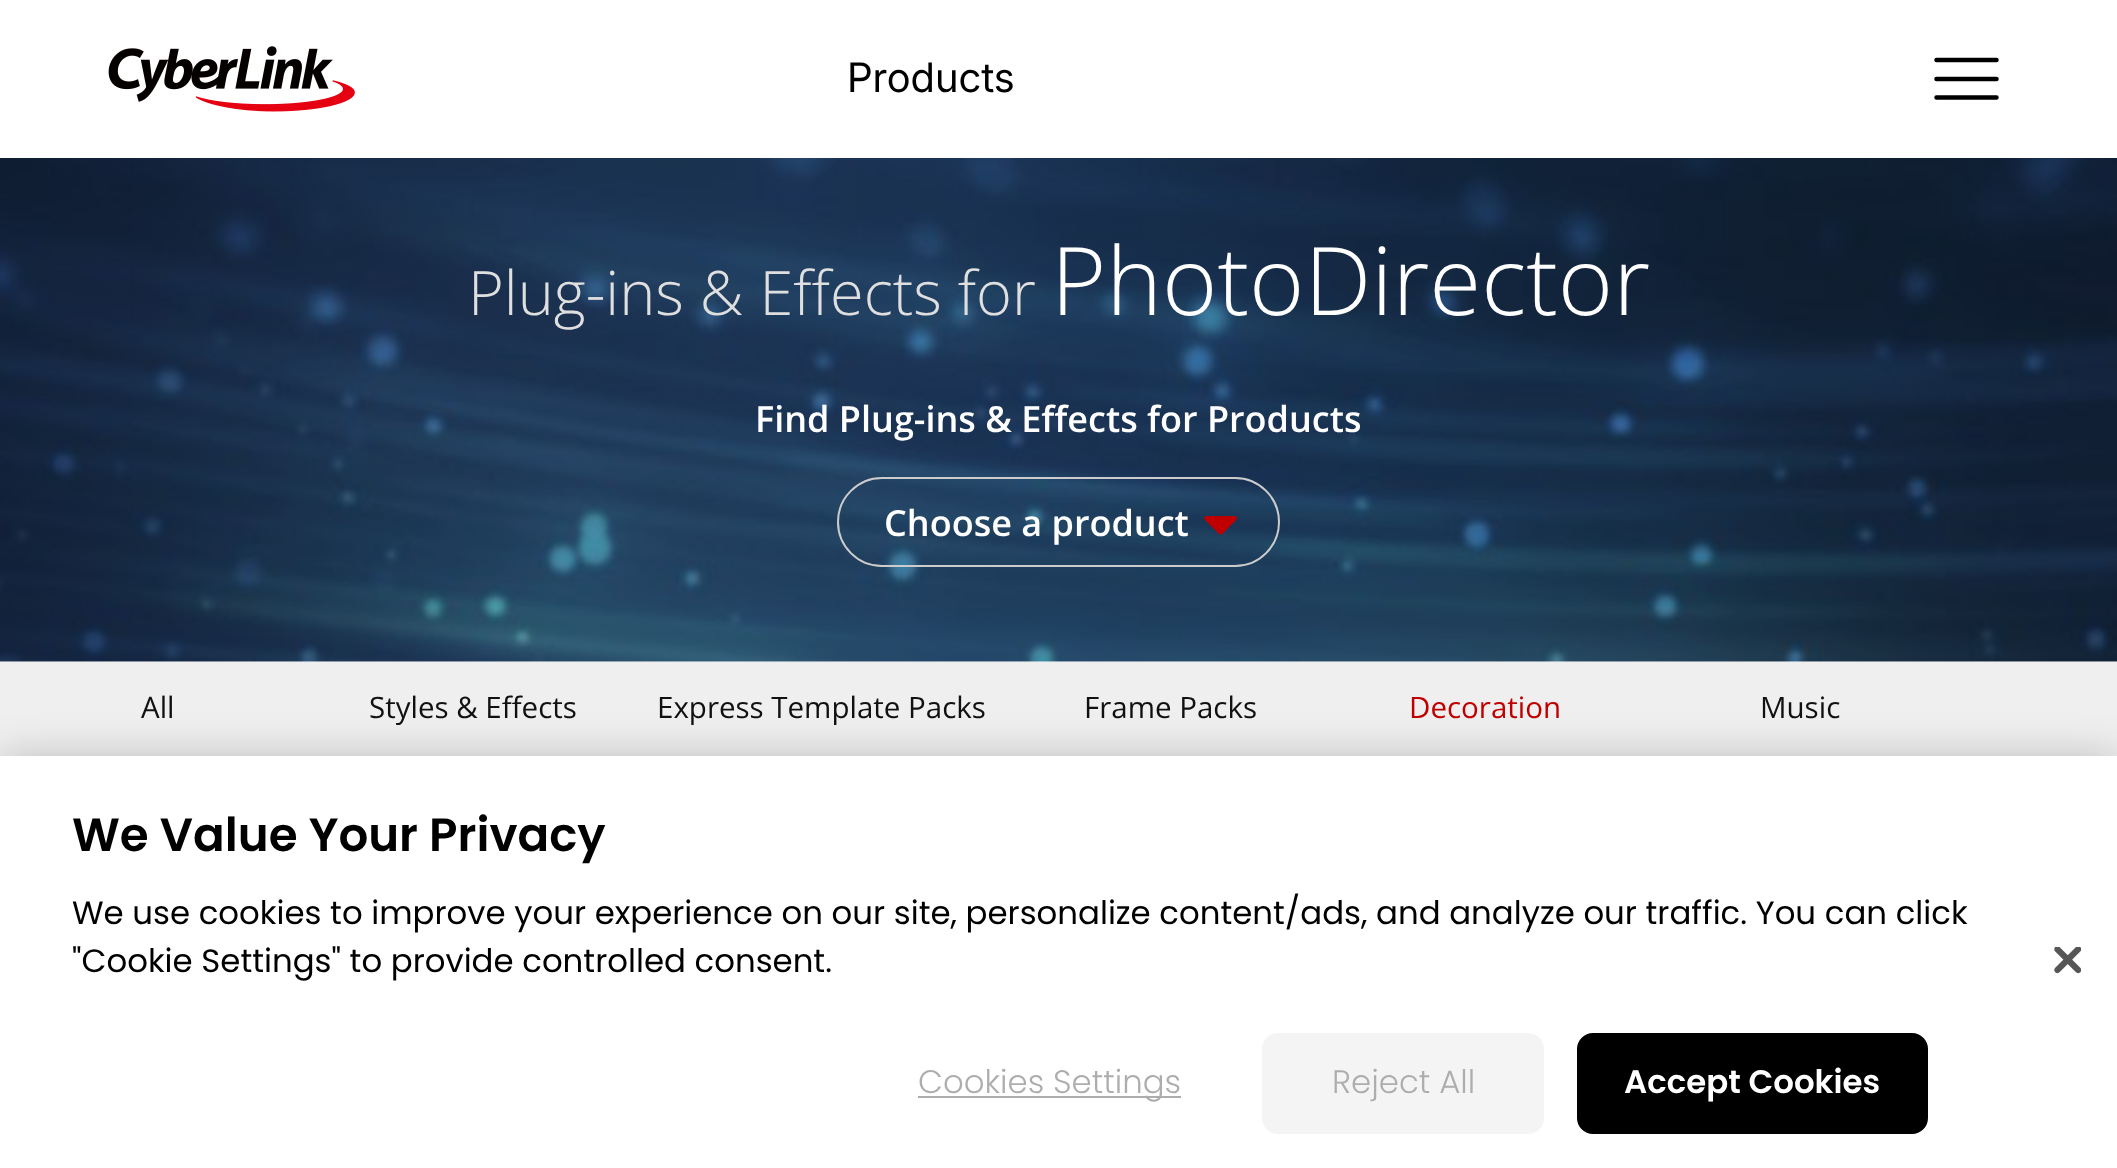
<svg xmlns="http://www.w3.org/2000/svg" width="2117" height="1168">
	<rect width="100%" height="100%" fill="#FFFFFF" />
	<image x="108" y="46" width="247" height="66" href="assets/img1.png" />
	<text x="847" y="92" font-family="Inter" font-size="40.5" fill="#000000">Products</text>
	<path d="M1936.5 60H1996.5M1936.5 79H1996.5M1936.5 97.5H1996.5" fill="none" stroke="#000000" stroke-width="4.5" stroke-linecap="round" />
	<image x="0" y="158" width="2117" height="504" href="assets/img2.png" />
	<text x="468" y="315" font-family="Open Sans" font-size="61.25" font-weight="300" fill="#DFDFDF">Plug-ins &amp; Effects for</text>
	<text x="1051" y="315" font-family="Open Sans" font-size="94.5" font-weight="300" fill="#FFFFFF">PhotoDirector</text>
	<text x="755" y="432" font-family="Open Sans" font-size="36" font-weight="600" fill="#FFFFFF">Find Plug-ins &amp; Effects for Products</text>
	<image x="1204" y="516" width="33" height="19" href="assets/img3.png" />
	<rect x="838" y="478" width="441" height="88" rx="44" fill="none" stroke="#CCCCCC" stroke-width="2" />
	<text x="884" y="536" font-family="Open Sans" font-size="36" font-weight="600" fill="#FFFFFF">Choose a product</text>
	<rect x="0" y="662" width="2117" height="94" fill="#EFEFEF" />
	<g font-family="Open Sans" font-size="29.5" fill="#111111">
		<text x="141" y="718">All</text>
		<text x="369" y="718">Styles &amp; Effects</text>
		<text x="657" y="718">Express Template Packs</text>
		<text x="1084" y="718">Frame Packs</text>
	</g>
	<text x="1409" y="718" font-family="Open Sans" font-size="29.5" fill="#C00000">Decoration</text>
	<text x="1760" y="718" font-family="Open Sans" font-size="29.5" fill="#111111">Music</text>
	<rect x="0" y="756" width="2117" height="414" fill="#000000" fill-opacity="0.2" filter="blur(20px)" />
	<rect x="0" y="756" width="2117" height="412" fill="#FFFFFF" />
	<text x="72" y="851" font-family="Poppins" font-size="46.75" font-weight="600" fill="#000000">We Value Your Privacy</text>
	<g font-family="Poppins" font-size="32.4" fill="#000000">
		<text x="72" y="924">We use cookies to improve your experience on our site, personalize content/ads, and analyze our traffic. You can click</text>
		<text x="72" y="972">"Cookie Settings" to provide controlled consent.</text>
	</g>
	<rect x="918" y="1096" width="263" height="2" fill="#ADADAD" />
	<text x="918" y="1093" font-family="Poppins" font-size="32.4" font-weight="300" fill="#ADADAD">Cookies Settings</text>
	<rect x="1262" y="1033" width="282" height="101" rx="16" fill="#F4F4F4" />
	<text x="1332" y="1093" font-family="Poppins" font-size="32.4" font-weight="300" fill="#ADADAD">Reject All</text>
	<rect x="1578" y="1034" width="349" height="99" rx="15" fill="#000000" stroke="#000000" stroke-width="2" />
	<text x="1624" y="1093" font-family="Poppins" font-size="32.4" font-weight="600" fill="#FFFFFF">Accept Cookies</text>
	<image x="2054" y="947" width="27" height="27" href="assets/img4.png" />
</svg>
